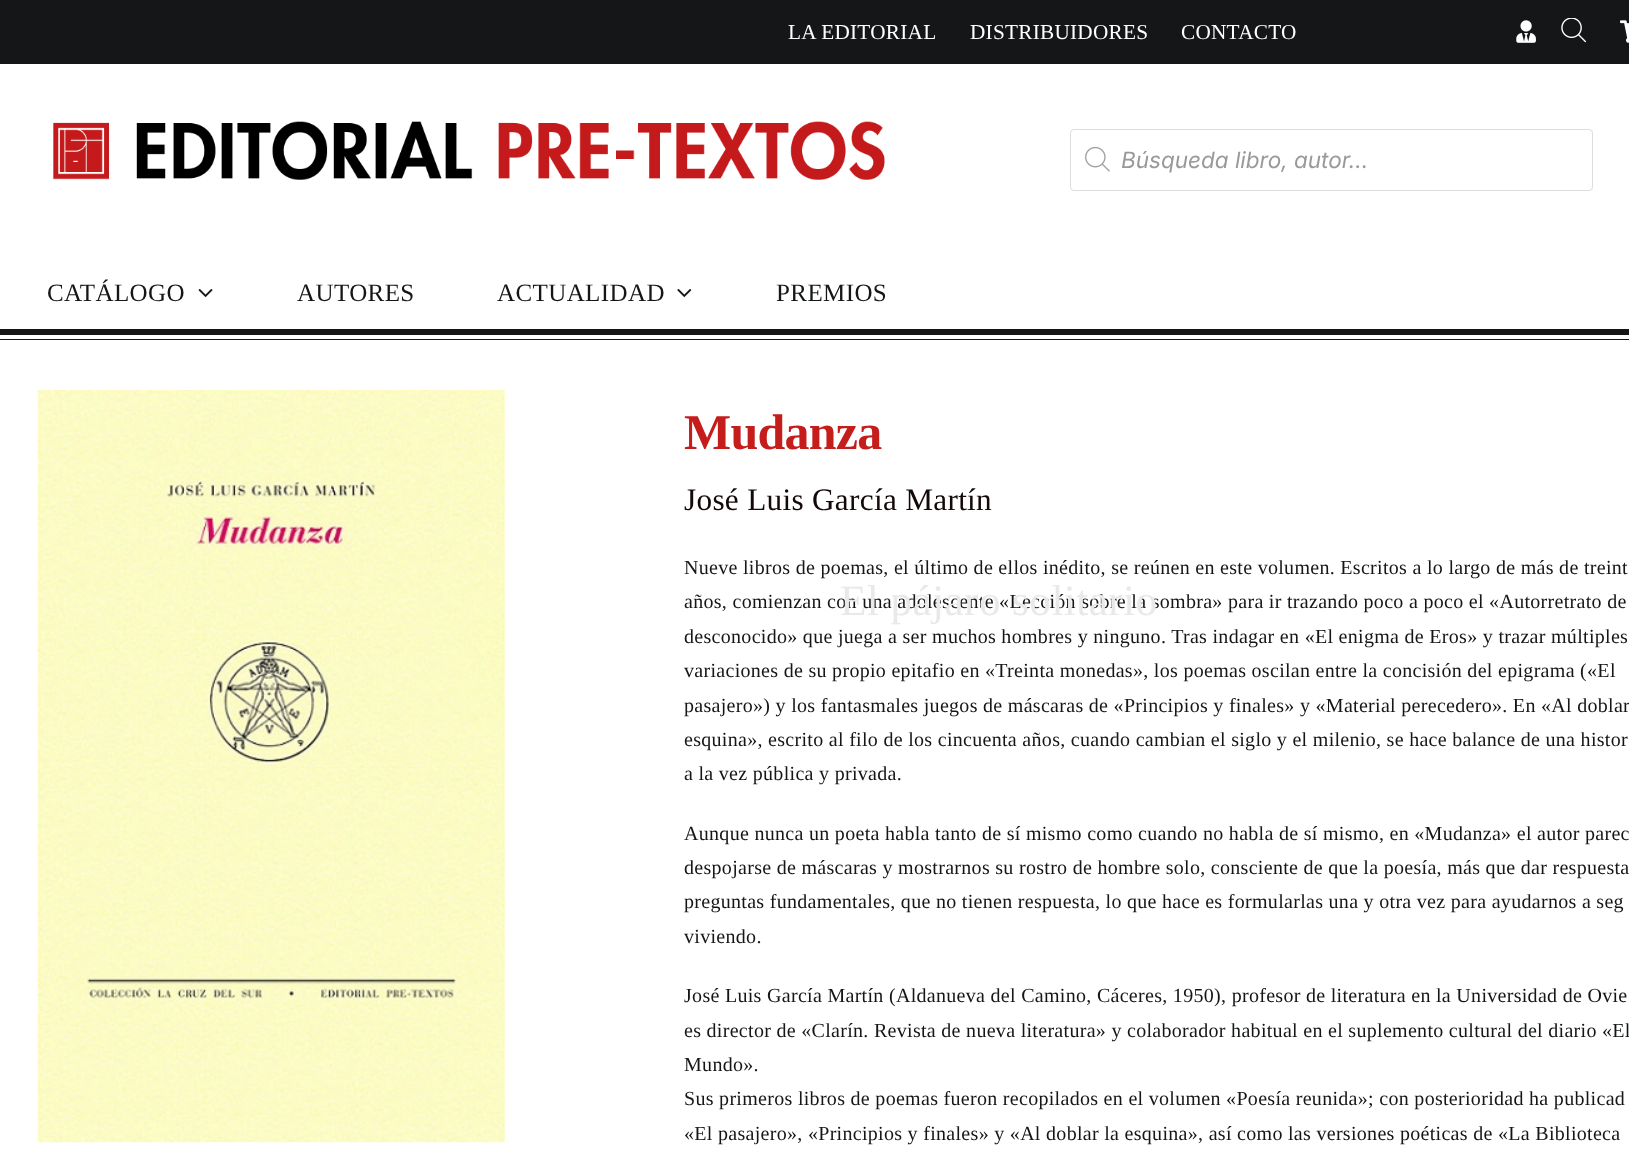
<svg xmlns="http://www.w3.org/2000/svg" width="1629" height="1150">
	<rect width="100%" height="100%" fill="#FFFFFF" />
	<rect x="0" y="0" width="1629" height="64" fill="#141617" />
	<g font-family="Liberation Serif" font-size="21.25" letter-spacing="0.25" fill="#FFFFFF">
		<text x="788" y="39">LA EDITORIAL</text>
		<text x="970" y="39">DISTRIBUIDORES</text>
		<text x="1181" y="39">CONTACTO</text>
	</g>
	<image x="1516" y="20" width="20" height="23" href="assets/img1.png" />
	<image x="1561" y="18" width="25" height="25" href="assets/img2.png" />
	<image x="1620" y="20" width="9" height="23" href="assets/img3.png" />
	<image x="53" y="121" width="832" height="59" href="assets/img4.png" />
	<rect x="1070.5" y="129.5" width="522" height="61" rx="3.5" fill="none" stroke="#DDDDDD" />
	<image x="1085" y="146" width="25" height="26" href="assets/img5.png" />
	<text x="1121" y="168" font-family="Inter" font-size="22.5" font-style="italic" fill="#999999">Búsqueda libro, autor...</text>
	<text x="47" y="301" font-family="Liberation Serif" font-size="25" letter-spacing="0.4" fill="#141617">CATÁLOGO</text>
	<image x="198" y="289" width="15" height="8" href="assets/img6.png" />
	<text x="684" y="608" font-family="Liberation Serif" font-size="20" letter-spacing="0.3" fill="#141617">años, comienzan con una adolescente «Lección sobre la sombra» para ir trazando poco a poco el «Autorretrato de</text>
	<text x="840" y="615" font-family="Liberation Serif" font-size="43.25" letter-spacing="0.4" fill="#E9E9E9">El pájaro solitario</text>
	<g font-family="Liberation Serif" font-size="25" letter-spacing="0.4" fill="#141617">
		<text x="297" y="301">AUTORES</text>
		<text x="497" y="301">ACTUALIDAD</text>
	</g>
	<image x="677" y="289" width="15" height="8" href="assets/img7.png" />
	<text x="776" y="301" font-family="Liberation Serif" font-size="25" letter-spacing="0.4" fill="#141617">PREMIOS</text>
	<rect x="0" y="329" width="1629" height="6" fill="#141617" />
	<rect x="0" y="339" width="1629" height="1" fill="#141617" />
	<image x="37" y="390" width="468" height="753" href="assets/img8.png" />
	<text x="684" y="449" font-family="Liberation Serif" font-size="50" font-weight="700" letter-spacing="-0.75" fill="#C51C1C">Mudanza</text>
	<text x="684" y="510" font-family="Liberation Serif" font-size="31.25" letter-spacing="0.3" fill="#130909">José Luis García Martín</text>
	<g font-family="Liberation Serif" font-size="20" letter-spacing="0.3" fill="#141617">
		<text x="684" y="574">Nueve libros de poemas, el último de ellos inédito, se reúnen en este volumen. Escritos a lo largo de más de treint</text>
		<text x="684" y="643">desconocido» que juega a ser muchos hombres y ninguno. Tras indagar en «El enigma de Eros» y trazar múltiples</text>
		<text x="684" y="677">variaciones de su propio epitafio en «Treinta monedas», los poemas oscilan entre la concisión del epigrama («El</text>
		<text x="684" y="712">pasajero») y los fantasmales juegos de máscaras de «Principios y finales» y «Material perecedero». En «Al doblar</text>
		<text x="684" y="746">esquina», escrito al filo de los cincuenta años, cuando cambian el siglo y el milenio, se hace balance de una histor</text>
		<text x="684" y="780">a la vez pública y privada.</text>
		<text x="684" y="840">Aunque nunca un poeta habla tanto de sí mismo como cuando no habla de sí mismo, en «Mudanza» el autor parec</text>
		<text x="684" y="874">despojarse de máscaras y mostrarnos su rostro de hombre solo, consciente de que la poesía, más que dar respuesta</text>
		<text x="684" y="908">preguntas fundamentales, que no tienen respuesta, lo que hace es formularlas una y otra vez para ayudarnos a seg</text>
		<text x="684" y="943">viviendo.</text>
		<text x="684" y="1002">José Luis García Martín (Aldanueva del Camino, Cáceres, 1950), profesor de literatura en la Universidad de Ovie</text>
		<text x="684" y="1037">es director de «Clarín. Revista de nueva literatura» y colaborador habitual en el suplemento cultural del diario «El</text>
		<text x="684" y="1071">Mundo».</text>
		<text x="684" y="1105">Sus primeros libros de poemas fueron recopilados en el volumen «Poesía reunida»; con posterioridad ha publicad</text>
		<text x="684" y="1140">«El pasajero», «Principios y finales» y «Al doblar la esquina», así como las versiones poéticas de «La Biblioteca</text>
	</g>
</svg>
